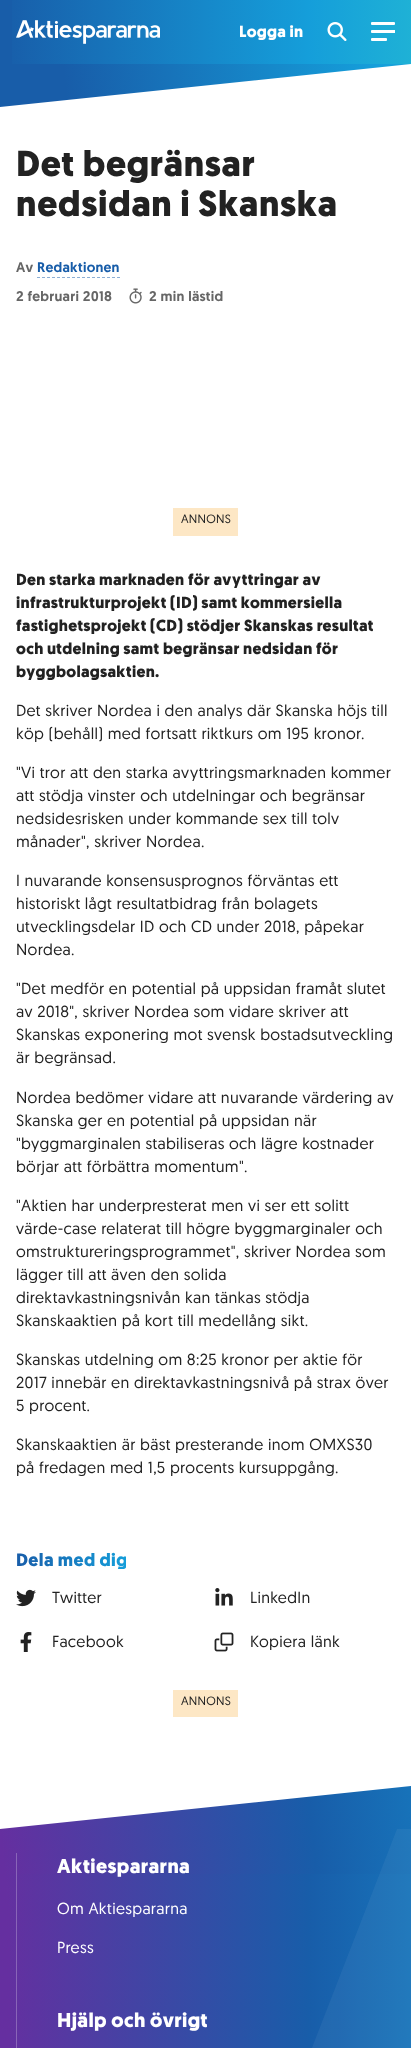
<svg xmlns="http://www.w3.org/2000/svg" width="411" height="2048">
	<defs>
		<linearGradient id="g1" gradientUnits="userSpaceOnUse" x1="0" y1="-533" x2="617" y2="-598"><stop offset="0" stop-color="#185DA9" /><stop offset="0.5" stop-color="#159EDA" /><stop offset="1" stop-color="#32D7CD" /></linearGradient>
		<linearGradient id="g2" gradientUnits="userSpaceOnUse" x1="0" y1="0" x2="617" y2="0"><stop offset="0" stop-color="#185DA9" /><stop offset="0.5" stop-color="#159EDA" /><stop offset="1" stop-color="#32D7CD" /></linearGradient>
		<clipPath id="clip1"><rect x="17" y="1551" width="109" height="18" /></clipPath>
		<linearGradient id="g3" gradientUnits="userSpaceOnUse" x1="16" y1="1560" x2="127" y2="1560"><stop offset="0" stop-color="#185DA9" /><stop offset="1" stop-color="#159EDA" /></linearGradient>
		<linearGradient id="g4" gradientUnits="userSpaceOnUse" x1="0" y1="1829" x2="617" y2="1764"><stop offset="0" stop-color="#652FA0" /><stop offset="0.5" stop-color="#185DA9" /><stop offset="1" stop-color="#159EDA" /></linearGradient>
		<linearGradient id="g5" gradientUnits="userSpaceOnUse" x1="0" y1="1829" x2="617" y2="1829"><stop offset="0" stop-color="#652FA0" /><stop offset="0.5" stop-color="#185DA9" /><stop offset="1" stop-color="#159EDA" /></linearGradient>
	</defs>
	<rect width="100%" height="100%" fill="#FFFFFF" />
	<path d="M0-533L411-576V64L0 107Z" fill="url(#g1)" />
	<rect x="12" y="0" width="399" height="64" fill="url(#g2)" />
	<image x="16" y="20" width="144" height="24" href="assets/img1.png" />
	<text x="239" y="37" font-family="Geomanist" font-size="16" font-weight="700" letter-spacing="0.32" fill="#FFFFFF">Logga in</text>
	<image x="327" y="22" width="20" height="19" href="assets/img2.png" />
	<rect x="371" y="22" width="24" height="3" rx="1" fill="#FFFFFF" />
	<path d="M372 30H395V33H372C371.5 33 371 32.5 371 32V31C371 30.5 371.5 30 372 30Z" fill="#FFFFFF" />
	<rect x="371" y="38" width="16" height="3" rx="1" fill="#FFFFFF" />
	<g font-family="Geomanist" font-size="36" font-weight="700" letter-spacing="0.75" fill="#222222">
		<text x="16" y="176">Det begränsar</text>
		<text x="16" y="216">nedsidan i Skanska</text>
	</g>
	<text x="16" y="272" font-family="Geomanist" font-size="14" font-weight="500" letter-spacing="0.25" fill="#666666">Av</text>
	<path d="M37 277.5H120" fill="none" stroke="#8BAED4" stroke-dasharray="3 2" />
	<text x="37" y="272" font-family="Geomanist" font-size="14" font-weight="500" letter-spacing="0.25" fill="#185DA9">Redaktionen</text>
	<text x="16" y="301" font-family="Geomanist" font-size="14" font-weight="500" letter-spacing="0.25" fill="#666666">2 februari 2018</text>
	<image x="129" y="288" width="13" height="16" href="assets/img3.png" />
	<text x="149" y="301" font-family="Geomanist" font-size="14" font-weight="500" letter-spacing="0.25" fill="#666666">2 min lästid</text>
	<rect x="173" y="508" width="65" height="2" fill="#FDE7C5" />
	<rect x="230" y="508" width="8" height="28" fill="#FDE7C5" />
	<rect x="173" y="528" width="65" height="8" fill="#FDE7C5" />
	<rect x="173" y="508" width="8" height="28" fill="#FDE7C5" />
	<rect x="181" y="510" width="49" height="18" fill="#FDE7C5" />
	<text x="181" y="523" font-family="Geomanist" font-size="12" letter-spacing="0.25" fill="#222222">ANNONS</text>
	<g font-family="Geomanist" font-size="16" font-weight="700" letter-spacing="0.32" fill="#222222">
		<text x="16" y="585">Den starka marknaden för avyttringar av</text>
		<text x="16" y="608">infrastrukturprojekt (ID) samt kommersiella</text>
		<text x="16" y="631">fastighetsprojekt (CD) stödjer Skanskas resultat</text>
		<text x="16" y="654">och utdelning samt begränsar nedsidan för</text>
		<text x="16" y="677">byggbolagsaktien.</text>
	</g>
	<g font-family="Geomanist" font-size="16" letter-spacing="0.32" fill="#222222">
		<text x="16" y="716">Det skriver Nordea i den analys där Skanska höjs till</text>
		<text x="16" y="739">köp (behåll) med fortsatt riktkurs om 195 kronor.</text>
		<text x="16" y="778">"Vi tror att den starka avyttringsmarknaden kommer</text>
		<text x="16" y="801">att stödja vinster och utdelningar och begränsar</text>
		<text x="16" y="824">nedsidesrisken under kommande sex till tolv</text>
		<text x="16" y="847">månader", skriver Nordea.</text>
		<text x="16" y="886">I nuvarande konsensusprognos förväntas ett</text>
		<text x="16" y="909">historiskt lågt resultatbidrag från bolagets</text>
		<text x="16" y="932">utvecklingsdelar ID och CD under 2018, påpekar</text>
		<text x="16" y="955">Nordea.</text>
		<text x="16" y="994">"Det medför en potential på uppsidan framåt slutet</text>
		<text x="16" y="1017">av 2018", skriver Nordea som vidare skriver att</text>
		<text x="16" y="1040">Skanskas exponering mot svensk bostadsutveckling</text>
		<text x="16" y="1063">är begränsad.</text>
		<text x="16" y="1103">Nordea bedömer vidare att nuvarande värdering av</text>
		<text x="16" y="1126">Skanska ger en potential på uppsidan när</text>
		<text x="16" y="1149">"byggmarginalen stabiliseras och lägre kostnader</text>
		<text x="16" y="1172">börjar att förbättra momentum".</text>
		<text x="16" y="1211">"Aktien har underpresterat men vi ser ett solitt</text>
		<text x="16" y="1234">värde-case relaterat till högre byggmarginaler och</text>
		<text x="16" y="1257">omstruktureringsprogrammet", skriver Nordea som</text>
		<text x="16" y="1280">lägger till att även den solida</text>
		<text x="16" y="1303">direktavkastningsnivån kan tänkas stödja</text>
		<text x="16" y="1326">Skanskaaktien på kort till medellång sikt.</text>
		<text x="16" y="1365">Skanskas utdelning om 8:25 kronor per aktie för</text>
		<text x="16" y="1388">2017 innebär en direktavkastningsnivå på strax över</text>
		<text x="16" y="1411">5 procent.</text>
		<text x="16" y="1450">Skanskaaktien är bäst presterande inom OMXS30</text>
		<text x="16" y="1473">på fredagen med 1,5 procents kursuppgång.</text>
	</g>
	<g clip-path="url(#clip1)">
		<text x="16" y="1566" font-family="Geomanist" font-size="18" font-weight="700" letter-spacing="0.4" fill="url(#g3)">Dela med dig</text>
	</g>
	<image x="16" y="1589" width="20" height="18" href="assets/img4.png" />
	<text x="52" y="1603" font-family="Geomanist" font-size="16" letter-spacing="0.32" fill="#222222">Twitter</text>
	<image x="215" y="1588" width="18" height="18" href="assets/img5.png" />
	<text x="250" y="1603" font-family="Geomanist" font-size="16" letter-spacing="0.32" fill="#222222">LinkedIn</text>
	<image x="20" y="1632" width="12" height="20" href="assets/img6.png" />
	<text x="52" y="1647" font-family="Geomanist" font-size="16" letter-spacing="0.32" fill="#222222">Facebook</text>
	<image x="214" y="1632" width="20" height="20" href="assets/img7.png" />
	<text x="250" y="1647" font-family="Geomanist" font-size="16" letter-spacing="0.32" fill="#222222">Kopiera länk</text>
	<rect x="173" y="1690" width="65" height="2" fill="#FDE7C5" />
	<rect x="230" y="1690" width="8" height="27" fill="#FDE7C5" />
	<rect x="173" y="1709" width="65" height="8" fill="#FDE7C5" />
	<rect x="173" y="1690" width="8" height="27" fill="#FDE7C5" />
	<rect x="181" y="1692" width="49" height="17" fill="#FDE7C5" />
	<text x="181" y="1705" font-family="Geomanist" font-size="12" letter-spacing="0.25" fill="#222222">ANNONS</text>
	<path d="M0 1829L411 1786V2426L0 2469Z" fill="url(#g4)" />
	<rect x="10" y="1874" width="401" height="174" fill="url(#g5)" />
	<rect x="16" y="1853" width="1" height="44" fill="#8965B8" />
	<text x="57" y="1873" font-family="Geomanist" font-size="20" font-weight="700" letter-spacing="0.4" fill="#FFFFFF">Aktiespararna</text>
	<rect x="16" y="1897" width="1" height="39" fill="#8965B8" />
	<g font-family="Geomanist" font-size="16" letter-spacing="0.32" fill="#FFFFFF">
		<text x="57" y="1914">Om Aktiespararna</text>
		<text x="57" y="1953">Press</text>
	</g>
	<rect x="16" y="1936" width="1" height="71" fill="#8965B8" />
	<rect x="16" y="2007" width="1" height="41" fill="#8965B8" />
	<text x="57" y="2027" font-family="Geomanist" font-size="20" font-weight="700" letter-spacing="0.4" fill="#FFFFFF">Hjälp och övrigt</text>
	<path d="M411 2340L303 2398L411 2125V1829H397L111 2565H236L411 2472Z" fill="#FFFFFF" fill-opacity="0.05" />
</svg>
